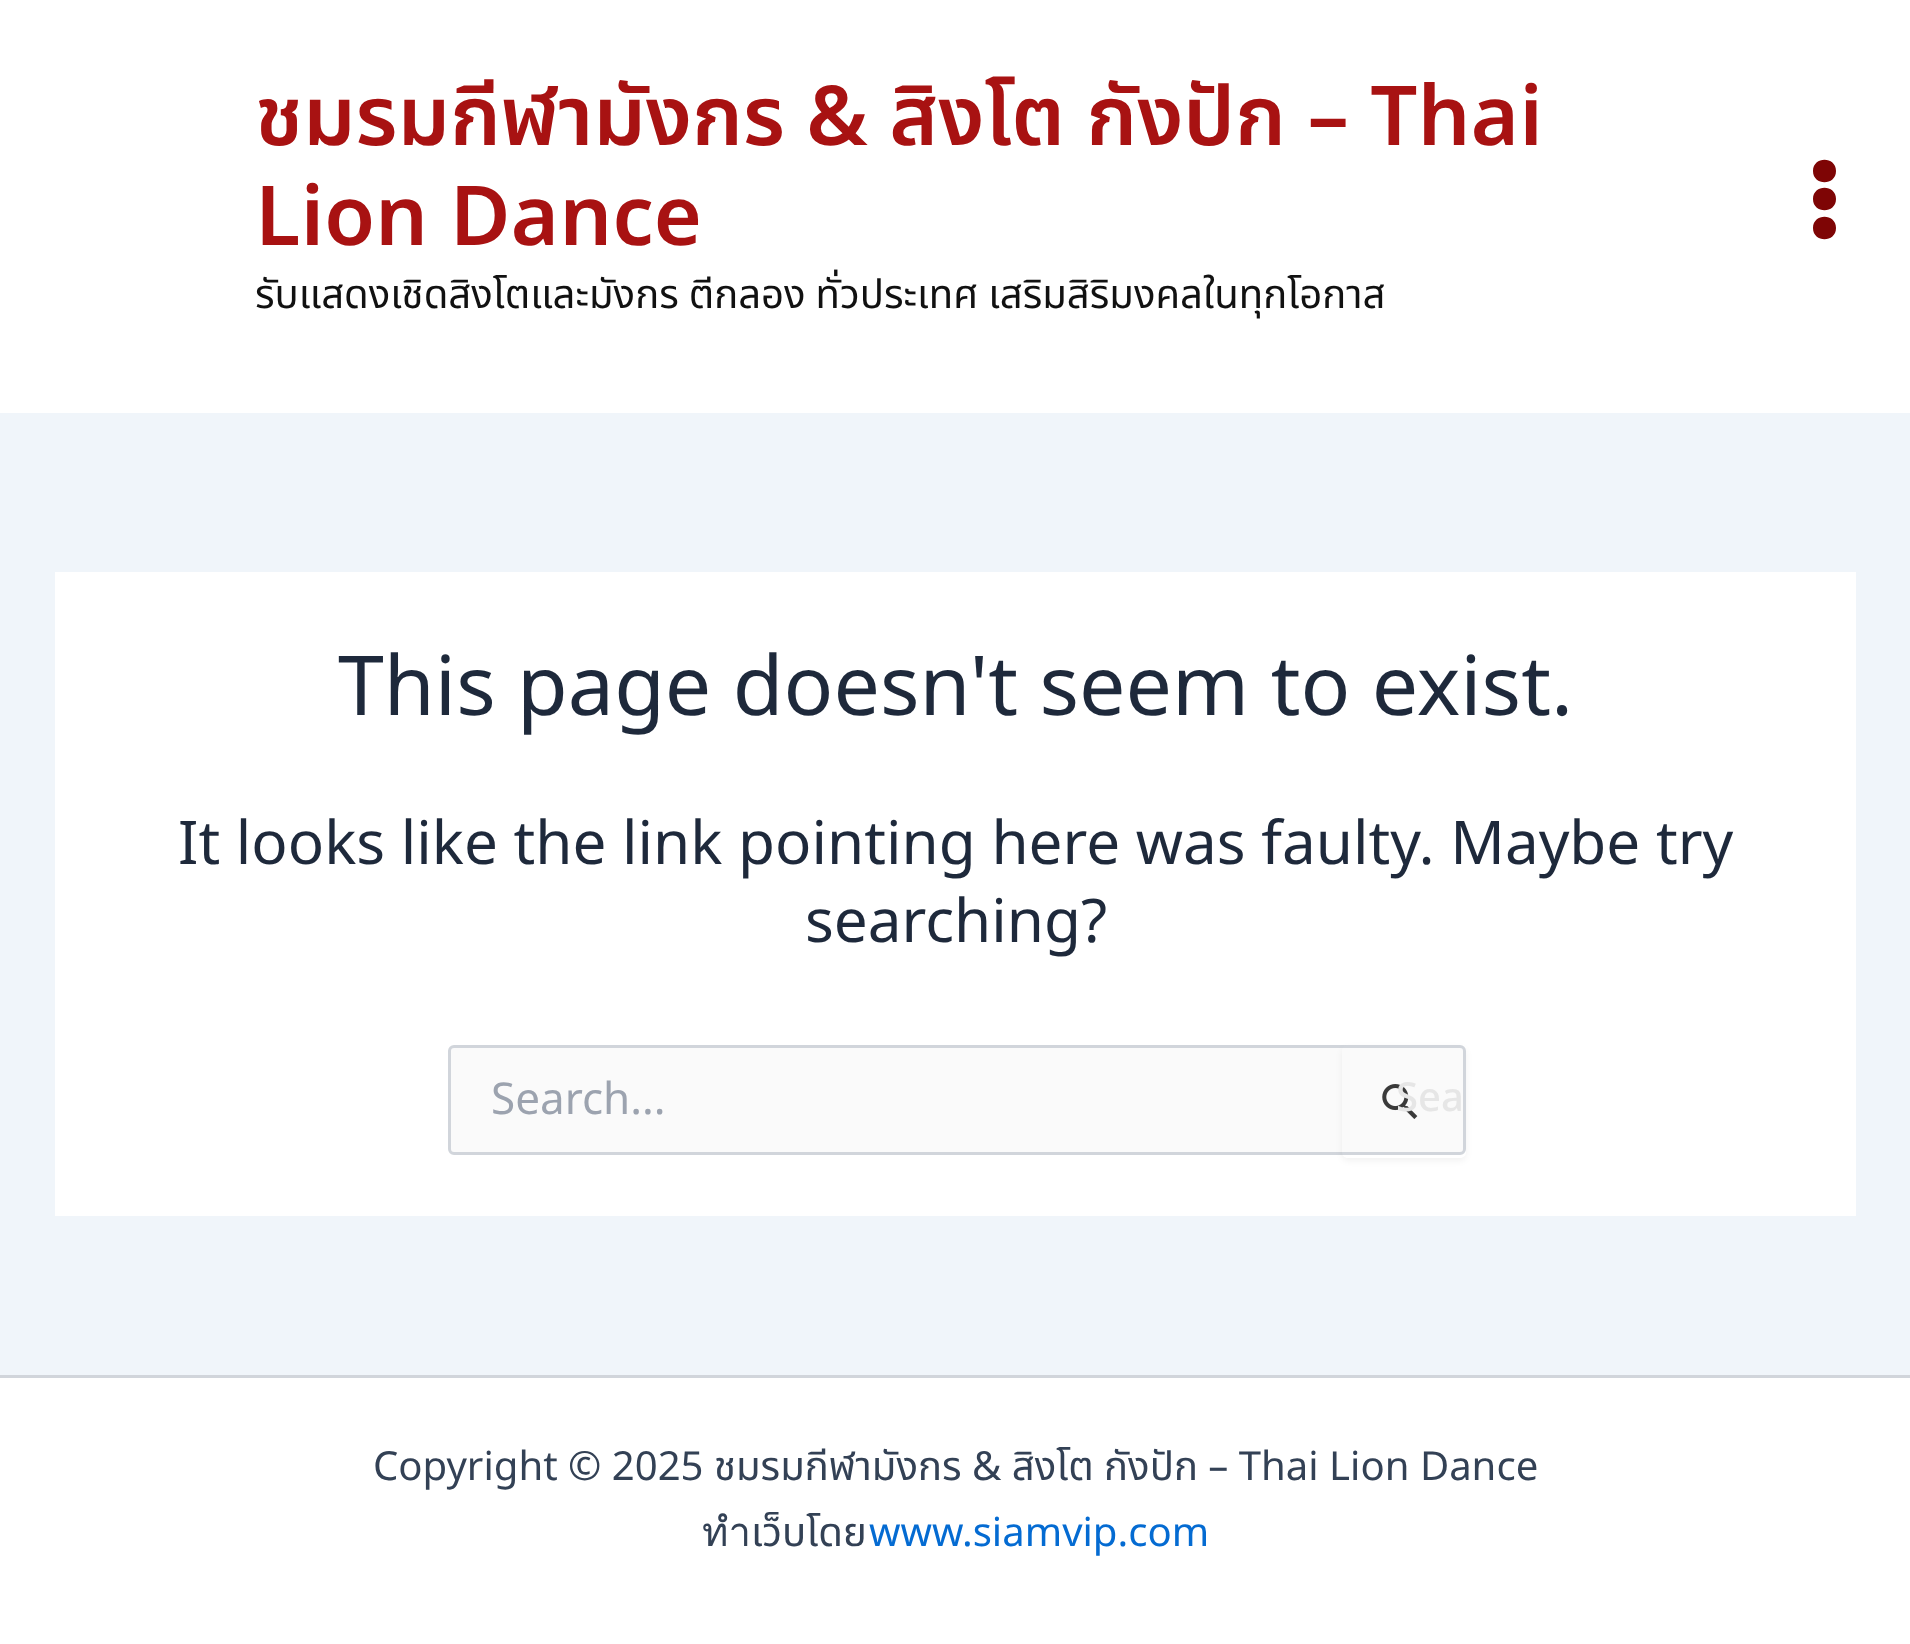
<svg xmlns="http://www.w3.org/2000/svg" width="1910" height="1644">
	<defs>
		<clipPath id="clip1"><path d="M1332 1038H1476V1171H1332ZM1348 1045H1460C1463.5 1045 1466 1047.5 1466 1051V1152C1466 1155.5 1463.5 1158 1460 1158H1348C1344.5 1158 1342 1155.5 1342 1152V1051C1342 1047.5 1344.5 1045 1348 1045Z" clip-rule="evenodd" /></clipPath>
	</defs>
	<rect width="100%" height="100%" fill="#F0F5FA" />
	<rect x="0" y="0" width="1910" height="413" fill="#FFFFFF" />
	<g font-family="Noto Sans Thai" font-size="82.75" font-weight="600" fill="#A81212">
		<text x="255" y="145">ชมรมกีฬามังกร &amp; สิงโต กังปัก – Thai</text>
		<text x="255" y="245">Lion Dance</text>
	</g>
	<text x="255" y="308" word-spacing="-0.5" font-family="Noto Sans Thai" font-size="40.1" fill="#111111">รับแสดงเชิดสิงโตและมังกร ตีกลอง ทั่วประเทศ เสริมสิริมงคลในทุกโอกาส</text>
	<path d="M1813 171C1813 156 1836 156 1836 171C1836 186 1813 186 1813 171ZM1813 199C1813 184 1836 184 1836 199C1836 214 1813 214 1813 199ZM1813 228C1813 213 1836 213 1836 228C1836 243 1813 243 1813 228Z" fill="#7E0505" />
	<rect x="55" y="572" width="1801" height="644" fill="#FFFFFF" />
	<text x="338" y="715" font-family="Noto Sans Thai" font-size="82.5" fill="#1E293B">This page doesn't seem to exist.</text>
	<g font-family="Noto Sans Thai" font-size="60.2" fill="#1E293B">
		<text x="178" y="864">It looks like the link pointing here was faulty. Maybe try</text>
		<text x="805" y="942">searching?</text>
	</g>
	<rect x="449.5" y="1046.5" width="1015" height="107" rx="4.5" fill="#FAFAFA" stroke="#D1D5DB" stroke-width="3" />
	<text x="491" y="1114" font-family="Noto Sans Thai" font-size="44" fill="#9CA3AF">Search...</text>
	<image x="1382" y="1084" width="36" height="35" href="assets/img1.png" />
	<g clip-path="url(#clip1)">
		<rect x="1342" y="1048" width="124" height="113" rx="6" fill="#000000" fill-opacity="0.05" filter="blur(3px)" />
	</g>
	<text x="1396" y="1111" font-family="Noto Sans Thai" font-size="40.1" font-weight="500" fill="#E6E6E6">Sea</text>
	<rect x="0" y="1378" width="1910" height="266" fill="#FFFFFF" />
	<rect x="0" y="1375" width="1910" height="3" fill="#D1D5DB" />
	<g font-family="Noto Sans Thai" font-size="40.1" fill="#334155">
		<text x="373" y="1480">Copyright © 2025 ชมรมกีฬามังกร &amp; สิงโต กังปัก – Thai Lion Dance</text>
		<text x="702" y="1546">ทำเว็บโดย</text>
	</g>
	<text x="869" y="1546" font-family="Noto Sans Thai" font-size="40.1" fill="#046BD2">www.siamvip.com</text>
</svg>
